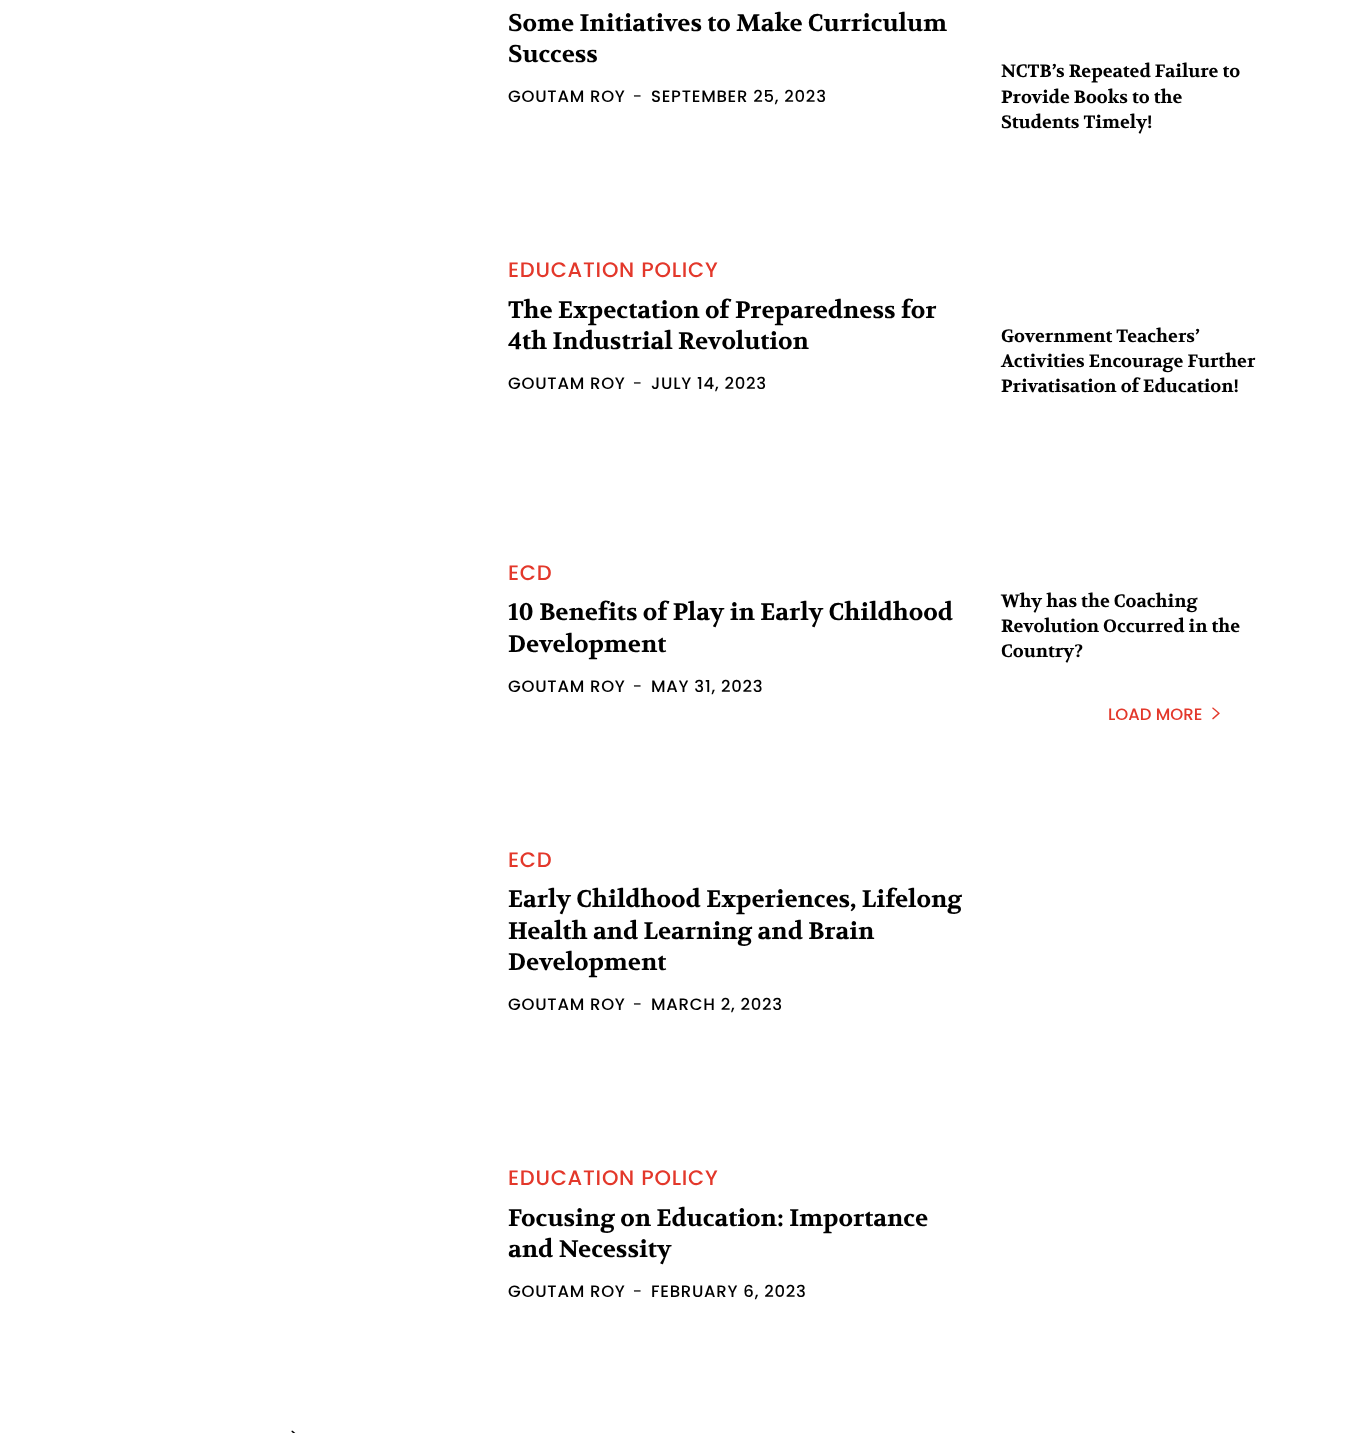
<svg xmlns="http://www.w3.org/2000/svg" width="1354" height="1433">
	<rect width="100%" height="100%" fill="#FFFFFF" />
	<g font-family="Volkhov" font-size="24" font-weight="700" fill="#000000">
		<text x="508" y="31">Some Initiatives to Make Curriculum</text>
		<text x="508" y="62">Success</text>
	</g>
	<text x="508" y="102" font-family="Poppins" font-size="16.5" font-weight="500" letter-spacing="0.75" fill="#000000">GOUTAM ROY</text>
	<text x="633" y="102" font-family="Poppins" font-size="16.5" letter-spacing="0.75" fill="#000000">-</text>
	<text x="651" y="102" font-family="Poppins" font-size="16.5" font-weight="500" letter-spacing="0.75" fill="#000000">SEPTEMBER 25, 2023</text>
	<text x="508" y="277" font-family="Poppins" font-size="21" font-weight="500" letter-spacing="0.75" fill="#E3382B">EDUCATION POLICY</text>
	<g font-family="Volkhov" font-size="24" font-weight="700" fill="#000000">
		<text x="508" y="318">The Expectation of Preparedness for</text>
		<text x="508" y="349">4th Industrial Revolution</text>
	</g>
	<text x="508" y="389" font-family="Poppins" font-size="16.5" font-weight="500" letter-spacing="0.75" fill="#000000">GOUTAM ROY</text>
	<text x="633" y="389" font-family="Poppins" font-size="16.5" letter-spacing="0.75" fill="#000000">-</text>
	<text x="651" y="389" font-family="Poppins" font-size="16.5" font-weight="500" letter-spacing="0.75" fill="#000000">JULY 14, 2023</text>
	<text x="508" y="580" font-family="Poppins" font-size="21" font-weight="500" letter-spacing="0.75" fill="#E3382B">ECD</text>
	<g font-family="Volkhov" font-size="24" font-weight="700" fill="#000000">
		<text x="508" y="620">10 Benefits of Play in Early Childhood</text>
		<text x="508" y="652">Development</text>
	</g>
	<text x="508" y="692" font-family="Poppins" font-size="16.5" font-weight="500" letter-spacing="0.75" fill="#000000">GOUTAM ROY</text>
	<text x="633" y="692" font-family="Poppins" font-size="16.5" letter-spacing="0.75" fill="#000000">-</text>
	<text x="651" y="692" font-family="Poppins" font-size="16.5" font-weight="500" letter-spacing="0.75" fill="#000000">MAY 31, 2023</text>
	<text x="508" y="867" font-family="Poppins" font-size="21" font-weight="500" letter-spacing="0.75" fill="#E3382B">ECD</text>
	<g font-family="Volkhov" font-size="24" font-weight="700" fill="#000000">
		<text x="508" y="907">Early Childhood Experiences, Lifelong</text>
		<text x="508" y="939">Health and Learning and Brain</text>
		<text x="508" y="970">Development</text>
	</g>
	<text x="508" y="1010" font-family="Poppins" font-size="16.5" font-weight="500" letter-spacing="0.75" fill="#000000">GOUTAM ROY</text>
	<text x="633" y="1010" font-family="Poppins" font-size="16.5" letter-spacing="0.75" fill="#000000">-</text>
	<text x="651" y="1010" font-family="Poppins" font-size="16.5" font-weight="500" letter-spacing="0.75" fill="#000000">MARCH 2, 2023</text>
	<text x="508" y="1185" font-family="Poppins" font-size="21" font-weight="500" letter-spacing="0.75" fill="#E3382B">EDUCATION POLICY</text>
	<g font-family="Volkhov" font-size="24" font-weight="700" fill="#000000">
		<text x="508" y="1226">Focusing on Education: Importance</text>
		<text x="508" y="1257">and Necessity</text>
	</g>
	<text x="508" y="1297" font-family="Poppins" font-size="16.5" font-weight="500" letter-spacing="0.75" fill="#000000">GOUTAM ROY</text>
	<text x="633" y="1297" font-family="Poppins" font-size="16.5" letter-spacing="0.75" fill="#000000">-</text>
	<text x="651" y="1297" font-family="Poppins" font-size="16.5" font-weight="500" letter-spacing="0.75" fill="#000000">FEBRUARY 6, 2023</text>
	<image x="291" y="1430" width="5" height="3" href="assets/img1.png" />
	<g font-family="Volkhov" font-size="18" font-weight="700" fill="#000000">
		<text x="1001" y="77">NCTB’s Repeated Failure to</text>
		<text x="1001" y="103">Provide Books to the</text>
		<text x="1001" y="128">Students Timely!</text>
		<text x="1001" y="342">Government Teachers’</text>
		<text x="1001" y="367">Activities Encourage Further</text>
		<text x="1001" y="392">Privatisation of Education!</text>
		<text x="1001" y="607">Why has the Coaching</text>
		<text x="1001" y="632">Revolution Occurred in the</text>
		<text x="1001" y="657">Country?</text>
	</g>
	<text x="1108" y="720" font-family="Poppins" font-size="16.5" font-weight="500" fill="#E3382B">LOAD MORE</text>
	<image x="1212" y="707" width="8" height="13" href="assets/img2.png" />
</svg>
